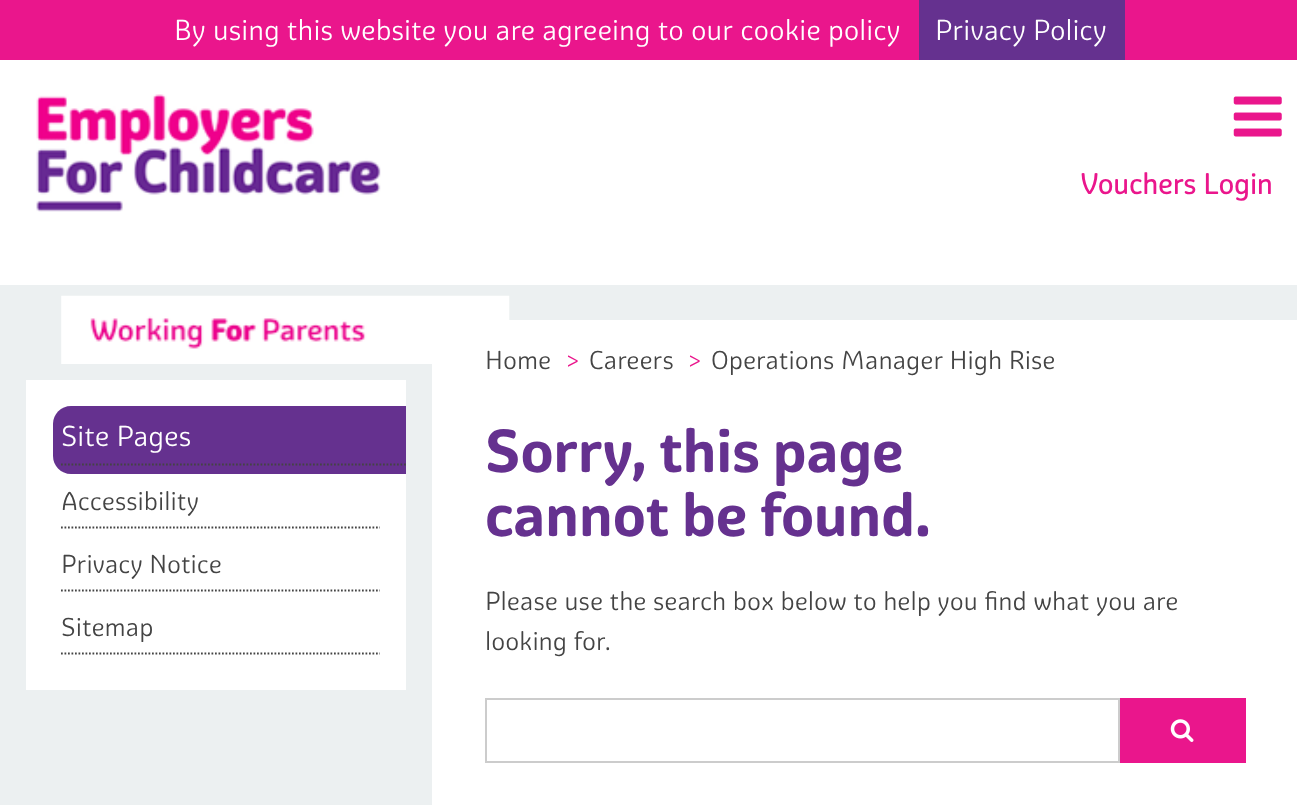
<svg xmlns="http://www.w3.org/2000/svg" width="1297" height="805">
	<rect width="100%" height="100%" fill="#ECF0F1" />
	<rect x="0" y="0" width="1297" height="60" fill="#EA168C" />
	<text x="174" y="40" font-family="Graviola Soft" font-size="28" fill="#FFFFFF">By using this website you are agreeing to our cookie policy</text>
	<rect x="919" y="0" width="206" height="60" fill="#65318F" />
	<text x="935" y="40" font-family="Graviola Soft" font-size="28" fill="#FFFFFF">Privacy Policy</text>
	<rect x="0" y="60" width="1297" height="225" fill="#FFFFFF" />
	<image x="36" y="94" width="345" height="118" href="assets/img1.png" />
	<image x="61" y="295" width="449" height="69" href="assets/img2.png" />
	<image x="1233" y="96" width="49" height="41" href="assets/img3.png" />
	<text x="1080" y="194" font-family="Graviola Soft" font-size="28" font-weight="700" fill="#EA168C">Vouchers Login</text>
	<rect x="26" y="380" width="380" height="310" fill="#FFFFFF" />
	<path d="M71 406H406V474H71C61 474 53 466 53 456V424C53 414 61 406 71 406Z" fill="#65318F" />
	<path d="M61 464.5H406" fill="none" stroke="#444444" stroke-width="1.8" stroke-dasharray="1.75 1.75" />
	<text x="61" y="446" font-family="Graviola Soft" font-size="28" fill="#FFFFFF">Site Pages</text>
	<path d="M61 527.5H380" fill="none" stroke="#444444" stroke-width="1.8" stroke-dasharray="1.75 1.75" />
	<text x="61" y="510" font-family="Graviola Soft" font-size="25.2" fill="#444444">Accessibility</text>
	<path d="M61 590.5H380" fill="none" stroke="#444444" stroke-width="1.8" stroke-dasharray="1.75 1.75" />
	<text x="61" y="573" font-family="Graviola Soft" font-size="25.2" fill="#444444">Privacy Notice</text>
	<path d="M61 653.5H380" fill="none" stroke="#444444" stroke-width="1.8" stroke-dasharray="1.75 1.75" />
	<text x="61" y="636" font-family="Graviola Soft" font-size="25.2" fill="#444444">Sitemap</text>
	<rect x="432" y="320" width="865" height="485" fill="#FFFFFF" />
	<text x="485" y="369" font-family="Graviola Soft" font-size="25.2" fill="#444444">Home</text>
	<text x="566" y="369" font-family="Graviola Soft" font-size="25.2" fill="#EA168C">&gt;</text>
	<text x="589" y="369" font-family="Graviola Soft" font-size="25.2" fill="#444444">Careers</text>
	<text x="688" y="369" font-family="Graviola Soft" font-size="25.2" fill="#EA168C">&gt;</text>
	<text x="711" y="369" font-family="Graviola Soft" font-size="25.2" fill="#444444">Operations Manager High Rise</text>
	<g font-family="'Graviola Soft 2'" font-size="58.75" font-weight="700" fill="#65318F">
		<text x="485" y="472">Sorry, this page</text>
		<text x="485" y="536">cannot be found.</text>
	</g>
	<g font-family="Graviola Soft" font-size="25.2" fill="#444444">
		<text x="485" y="610">Please use the search box below to help you find what you are</text>
		<text x="485" y="650">looking for.</text>
	</g>
	<rect x="486" y="699" width="633" height="63" fill="none" stroke="#CCCCCC" stroke-width="2" />
	<rect x="1120" y="698" width="126" height="65" fill="#EA168C" />
	<image x="1170" y="719" width="24" height="23" href="assets/img4.png" />
</svg>
